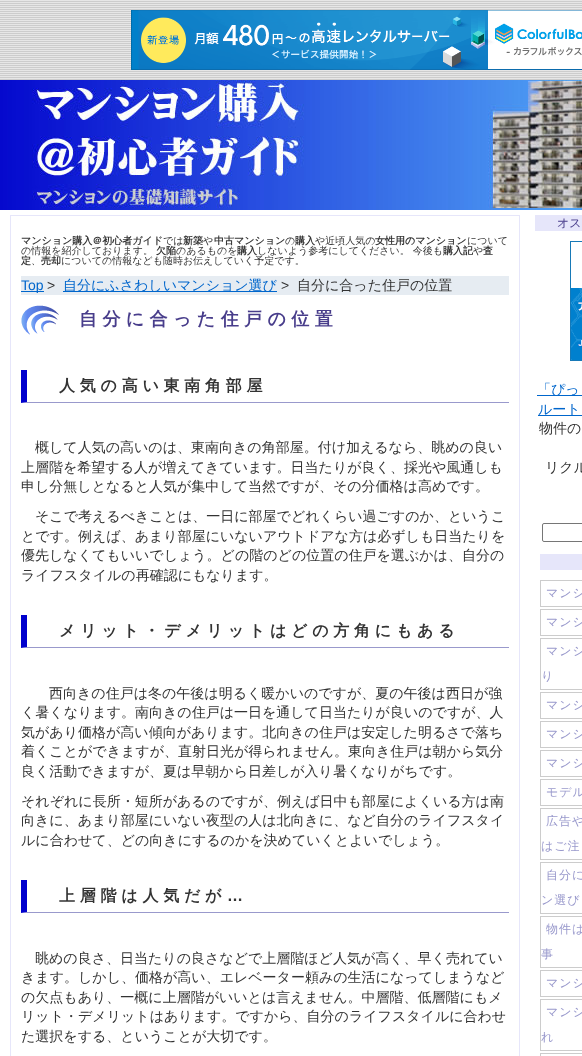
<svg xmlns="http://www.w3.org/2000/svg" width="582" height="1056">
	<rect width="100%" height="100%" fill="#FFFFFF" />
	<image x="0" y="0" width="582" height="80" href="assets/img1.png" />
	<image x="131" y="10" width="451" height="60" href="assets/img2.png" />
	<image x="0" y="80" width="582" height="130" href="assets/img3.png" />
	<rect x="10.5" y="215.5" width="509" height="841" fill="none" stroke="#E6E6FA" />
	<text x="21" y="244" font-family="WenQuanYi Zen Hei" font-size="10" font-weight="700" fill="#333333">マンション購入＠初心者ガイド</text>
	<text x="163" y="244" font-family="WenQuanYi Zen Hei" font-size="10" font-weight="500" fill="#333333">では</text>
	<text x="183" y="244" font-family="WenQuanYi Zen Hei" font-size="10" font-weight="700" fill="#333333">新築</text>
	<text x="203" y="244" font-family="WenQuanYi Zen Hei" font-size="10" font-weight="500" fill="#333333">や</text>
	<text x="214" y="244" font-family="WenQuanYi Zen Hei" font-size="10" font-weight="700" fill="#333333">中古マンション</text>
	<text x="285" y="244" font-family="WenQuanYi Zen Hei" font-size="10" font-weight="500" fill="#333333">の</text>
	<text x="295" y="244" font-family="WenQuanYi Zen Hei" font-size="10" font-weight="700" fill="#333333">購入</text>
	<text x="315" y="244" font-family="WenQuanYi Zen Hei" font-size="10" font-weight="500" fill="#333333">や近頃人気の</text>
	<text x="375" y="244" font-family="WenQuanYi Zen Hei" font-size="10" font-weight="700" fill="#333333">女性用のマンション</text>
	<g font-family="WenQuanYi Zen Hei" font-size="10" font-weight="500" fill="#333333">
		<text x="467" y="244">について</text>
		<text x="21" y="254">の情報を紹介しております。</text>
	</g>
	<text x="156" y="254" font-family="WenQuanYi Zen Hei" font-size="10" font-weight="700" fill="#333333">欠陥</text>
	<text x="176" y="254" font-family="WenQuanYi Zen Hei" font-size="10" font-weight="500" fill="#333333">のあるものを</text>
	<text x="237" y="254" font-family="WenQuanYi Zen Hei" font-size="10" font-weight="700" fill="#333333">購入</text>
	<text x="257" y="254" font-family="WenQuanYi Zen Hei" font-size="10" font-weight="500" fill="#333333">しないよう参考にしてください。 今後も</text>
	<text x="443" y="254" font-family="WenQuanYi Zen Hei" font-size="10" font-weight="700" fill="#333333">購入記</text>
	<text x="473" y="254" font-family="WenQuanYi Zen Hei" font-size="10" font-weight="500" fill="#333333">や</text>
	<g font-family="WenQuanYi Zen Hei" font-size="10" font-weight="700" fill="#333333">
		<text x="483" y="254">査</text>
		<text x="21" y="264">定</text>
	</g>
	<text x="31" y="264" font-family="WenQuanYi Zen Hei" font-size="10" font-weight="500" fill="#333333">、</text>
	<text x="41" y="264" font-family="WenQuanYi Zen Hei" font-size="10" font-weight="700" fill="#333333">売却</text>
	<text x="61" y="264" font-family="WenQuanYi Zen Hei" font-size="10" font-weight="500" fill="#333333">についての情報なども随時お伝えしていく予定です。</text>
	<rect x="21" y="276" width="488" height="19" fill="#E6ECF2" />
	<rect x="21" y="291" width="23" height="1" fill="#0066CC" />
	<text x="21" y="290" font-family="Liberation Sans" font-size="14" fill="#0066CC">Top</text>
	<text x="47" y="290" font-family="Liberation Sans" font-size="14" fill="#333333">&gt;</text>
	<rect x="63" y="291" width="214" height="1" fill="#0066CC" />
	<text x="63" y="290" font-family="WenQuanYi Zen Hei" font-size="14" font-weight="500" fill="#0066CC">自分にふさわしいマンション選び</text>
	<text x="281" y="290" font-family="Liberation Sans" font-size="14" fill="#333333">&gt;</text>
	<text x="297" y="290" font-family="WenQuanYi Zen Hei" font-size="14" font-weight="500" fill="#333333">自分に合った住戸の位置</text>
	<image x="21" y="305" width="38" height="30" href="assets/img4.png" />
	<text x="79" y="325" font-family="WenQuanYi Zen Hei" font-size="18" font-weight="700" letter-spacing="5.4" fill="#483D8B">自分に合った住戸の位置</text>
	<path d="M509 403H21L27 402H509Z" fill="#9999CC" />
	<path d="M21 403V370H27V402Z" fill="#0000CD" />
	<text x="59" y="391" font-family="WenQuanYi Zen Hei" font-size="16" font-weight="700" letter-spacing="4.75" fill="#333333">人気の高い東南角部屋</text>
	<g font-family="WenQuanYi Zen Hei" font-size="14" font-weight="500" fill="#333333">
		<text x="35" y="452">概して人気の高いのは、東南向きの角部屋。付け加えるなら、眺めの良い</text>
		<text x="21" y="472">上層階を希望する人が増えてきています。日当たりが良く、採光や風通しも</text>
		<text x="21" y="491">申し分無しとなると人気が集中して当然ですが、その分価格は高めです。</text>
		<text x="35" y="521">そこで考えるべきことは、一日に部屋でどれくらい過ごすのか、というこ</text>
		<text x="21" y="541">とです。例えば、あまり部屋にいないアウトドアな方は必ずしも日当たりを</text>
		<text x="21" y="560">優先しなくてもいいでしょう。どの階のどの位置の住戸を選ぶかは、自分の</text>
		<text x="21" y="580">ライフスタイルの再確認にもなります。</text>
	</g>
	<path d="M509 648H21L27 647H509Z" fill="#9999CC" />
	<path d="M21 648V615H27V647Z" fill="#0000CD" />
	<text x="59" y="636" font-family="WenQuanYi Zen Hei" font-size="16" font-weight="700" letter-spacing="4.75" fill="#333333">メリット・デメリットはどの方角にもある</text>
	<g font-family="WenQuanYi Zen Hei" font-size="14" font-weight="500" fill="#333333">
		<text x="49" y="698">西向きの住戸は冬の午後は明るく暖かいのですが、夏の午後は西日が強</text>
		<text x="21" y="717">く暑くなります。南向きの住戸は一日を通して日当たりが良いのですが、人</text>
		<text x="21" y="737">気があり価格が高い傾向があります。北向きの住戸は安定した明るさで落ち</text>
		<text x="21" y="756">着くことができますが、直射日光が得られません。東向き住戸は朝から気分</text>
		<text x="21" y="776">良く活動できますが、夏は早朝から日差しが入り暑くなりがちです。</text>
		<text x="21" y="806">それぞれに長所・短所があるのですが、例えば日中も部屋によくいる方は南</text>
		<text x="21" y="825">向きに、あまり部屋にいない夜型の人は北向きに、など自分のライフスタイ</text>
		<text x="21" y="845">ルに合わせて、どの向きにするのかを決めていくとよいでしょう。</text>
	</g>
	<path d="M509 913H21L27 912H509Z" fill="#9999CC" />
	<path d="M21 913V880H27V912Z" fill="#0000CD" />
	<text x="59" y="901" font-family="WenQuanYi Zen Hei" font-size="16" font-weight="700" letter-spacing="4.75" fill="#333333">上層階は人気だが</text>
	<text x="227" y="901" font-family="Liberation Sans" font-size="16" font-weight="700" letter-spacing="4.75" fill="#333333">…</text>
	<g font-family="WenQuanYi Zen Hei" font-size="14" font-weight="500" fill="#333333">
		<text x="35" y="963">眺めの良さ、日当たりの良さなどで上層階ほど人気が高く、早く売れてい</text>
		<text x="21" y="982">きます。しかし、価格が高い、エレベーター頼みの生活になってしまうなど</text>
		<text x="21" y="1002">の欠点もあり、一概に上層階がいいとは言えません。中層階、低層階にもメ</text>
		<text x="21" y="1021">リット・デメリットはあります。ですから、自分のライフスタイルに合わせ</text>
		<text x="21" y="1041">た選択をする、ということが大切です。</text>
	</g>
	<rect x="535" y="215" width="47" height="16" fill="#E6E6FA" />
	<text x="557" y="227" font-family="WenQuanYi Zen Hei" font-size="12" font-weight="500" fill="#483D8B">オス</text>
	<image x="570" y="241" width="12" height="120" href="assets/img5.png" />
	<rect x="537" y="395" width="45" height="1" fill="#0066CC" />
	<text x="537" y="394" font-family="WenQuanYi Zen Hei" font-size="14" font-weight="500" fill="#0066CC">「ぴっ</text>
	<rect x="538" y="415" width="44" height="1" fill="#0066CC" />
	<text x="538" y="414" font-family="WenQuanYi Zen Hei" font-size="14" font-weight="500" fill="#0066CC">ルート</text>
	<g font-family="WenQuanYi Zen Hei" font-size="14" font-weight="500" fill="#333333">
		<text x="539" y="433">物件の</text>
		<text x="545" y="472">リクル</text>
	</g>
	<rect x="542.5" y="523.5" width="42" height="18" rx="1.5" fill="none" stroke="#767676" />
	<rect x="540" y="554" width="42" height="16" fill="#E6E6FA" />
	<rect x="540.5" y="580.5" width="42" height="26" fill="none" stroke="#CCCCCC" />
	<text x="546" y="597" font-family="WenQuanYi Zen Hei" font-size="12" font-weight="500" letter-spacing="1" fill="#9999CC">マンシ</text>
	<rect x="540.5" y="609.5" width="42" height="26" fill="none" stroke="#CCCCCC" />
	<text x="546" y="626" font-family="WenQuanYi Zen Hei" font-size="12" font-weight="500" letter-spacing="1" fill="#9999CC">マンシ</text>
	<rect x="540.5" y="638.5" width="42" height="51" fill="none" stroke="#CCCCCC" />
	<g font-family="WenQuanYi Zen Hei" font-size="12" font-weight="500" letter-spacing="1" fill="#9999CC">
		<text x="546" y="655">マンシ</text>
		<text x="541" y="680">り</text>
	</g>
	<rect x="540.5" y="692.5" width="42" height="26" fill="none" stroke="#CCCCCC" />
	<text x="546" y="709" font-family="WenQuanYi Zen Hei" font-size="12" font-weight="500" letter-spacing="1" fill="#9999CC">マンシ</text>
	<rect x="540.5" y="721.5" width="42" height="26" fill="none" stroke="#CCCCCC" />
	<text x="546" y="738" font-family="WenQuanYi Zen Hei" font-size="12" font-weight="500" letter-spacing="1" fill="#9999CC">マンシ</text>
	<rect x="540.5" y="750.5" width="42" height="26" fill="none" stroke="#CCCCCC" />
	<text x="546" y="767" font-family="WenQuanYi Zen Hei" font-size="12" font-weight="500" letter-spacing="1" fill="#9999CC">マンシ</text>
	<rect x="540.5" y="779.5" width="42" height="26" fill="none" stroke="#CCCCCC" />
	<text x="546" y="796" font-family="WenQuanYi Zen Hei" font-size="12" font-weight="500" letter-spacing="1" fill="#9999CC">モデル</text>
	<rect x="540.5" y="808.5" width="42" height="51" fill="none" stroke="#CCCCCC" />
	<g font-family="WenQuanYi Zen Hei" font-size="12" font-weight="500" letter-spacing="1" fill="#9999CC">
		<text x="546" y="825">広告や</text>
		<text x="541" y="850">はご注</text>
	</g>
	<rect x="540.5" y="862.5" width="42" height="51" fill="none" stroke="#CCCCCC" />
	<g font-family="WenQuanYi Zen Hei" font-size="12" font-weight="500" letter-spacing="1" fill="#9999CC">
		<text x="546" y="879">自分に</text>
		<text x="541" y="904">ン選び</text>
	</g>
	<rect x="540.5" y="916.5" width="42" height="51" fill="none" stroke="#CCCCCC" />
	<g font-family="WenQuanYi Zen Hei" font-size="12" font-weight="500" letter-spacing="1" fill="#9999CC">
		<text x="546" y="933">物件は</text>
		<text x="541" y="958">事</text>
	</g>
	<rect x="540.5" y="970.5" width="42" height="26" fill="none" stroke="#CCCCCC" />
	<text x="546" y="987" font-family="WenQuanYi Zen Hei" font-size="12" font-weight="500" letter-spacing="1" fill="#9999CC">マンシ</text>
	<rect x="540.5" y="999.5" width="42" height="51" fill="none" stroke="#CCCCCC" />
	<g font-family="WenQuanYi Zen Hei" font-size="12" font-weight="500" letter-spacing="1" fill="#9999CC">
		<text x="546" y="1016">マンシ</text>
		<text x="541" y="1041">れ</text>
	</g>
	<rect x="540.5" y="1053.5" width="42" height="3" fill="none" stroke="#CCCCCC" />
</svg>
